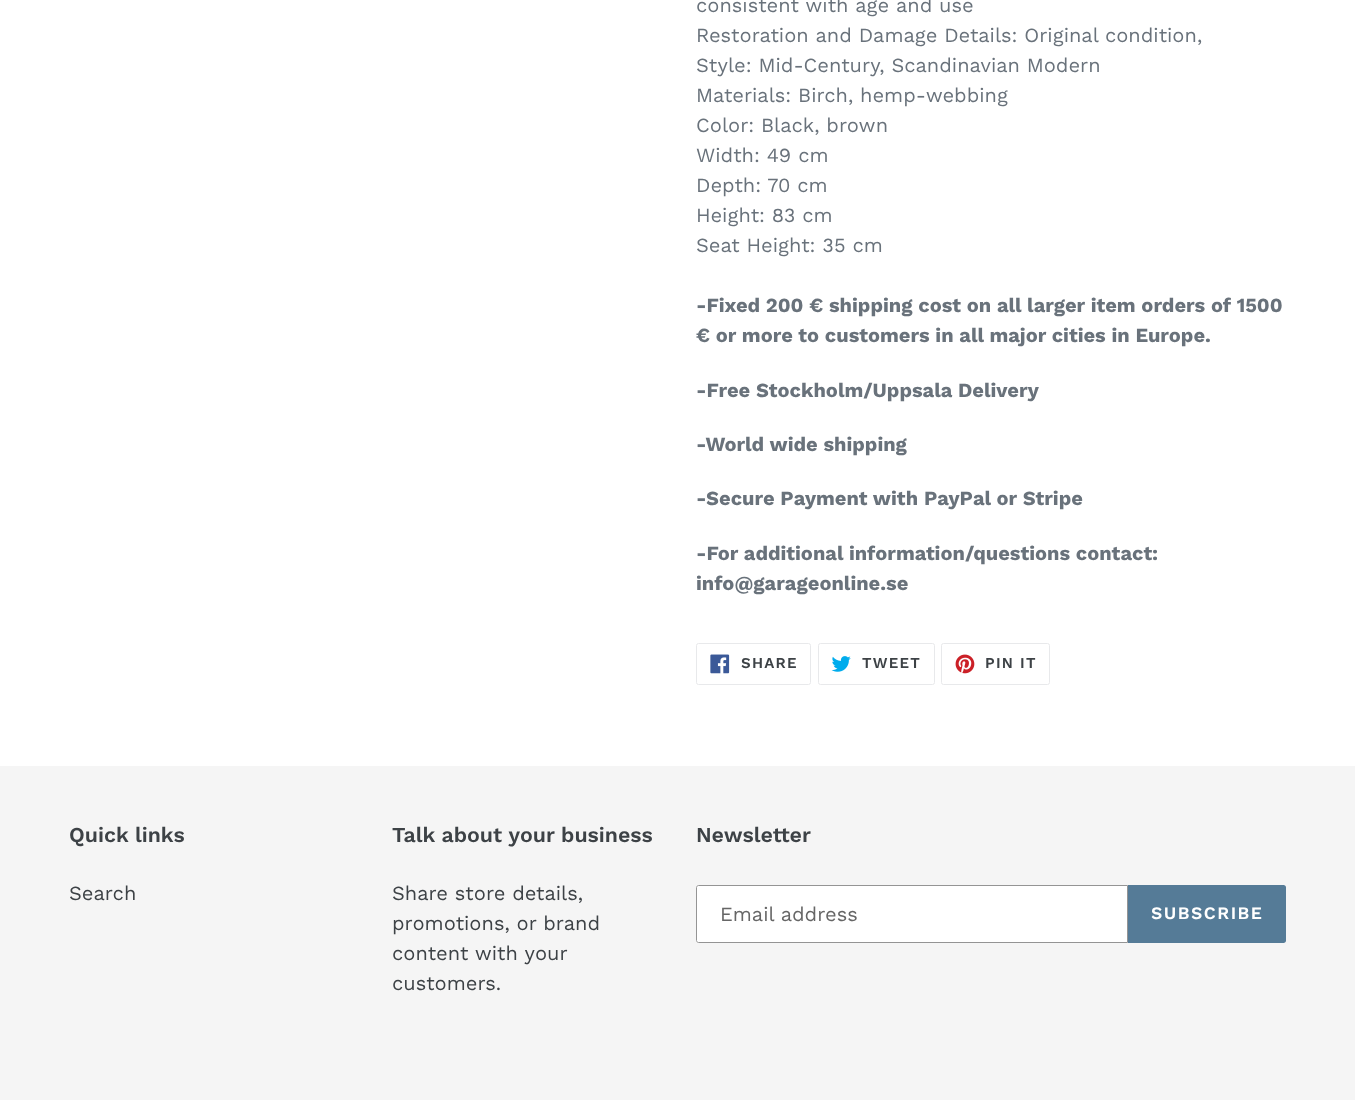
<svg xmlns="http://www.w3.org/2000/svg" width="1355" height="1100">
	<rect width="100%" height="100%" fill="#FFFFFF" />
	<g font-family="Work Sans" font-size="20" fill="#69727B">
		<text x="696" y="12">consistent with age and use</text>
		<text x="696" y="42">Restoration and Damage Details: Original condition,</text>
		<text x="696" y="72">Style: Mid-Century, Scandinavian Modern</text>
		<text x="696" y="102">Materials: Birch, hemp-webbing</text>
		<text x="696" y="132">Color: Black, brown</text>
		<text x="696" y="162">Width: 49 cm</text>
		<text x="696" y="192">Depth: 70 cm</text>
		<text x="696" y="222">Height: 83 cm</text>
		<text x="696" y="252">Seat Height: 35 cm</text>
	</g>
	<g font-family="Work Sans" font-size="20" font-weight="700" fill="#69727B">
		<text x="696" y="312">-Fixed 200 € shipping cost on all larger item orders of 1500</text>
		<text x="696" y="342">€ or more to customers in all major cities in Europe.</text>
		<text x="696" y="397">-Free Stockholm/Uppsala Delivery</text>
		<text x="696" y="451">-World wide shipping</text>
		<text x="696" y="505">-Secure Payment with PayPal or Stripe</text>
		<text x="696" y="560">-For additional information/questions contact:</text>
		<text x="696" y="590">info@garageonline.se</text>
	</g>
	<rect x="696.5" y="643.5" width="114" height="41" rx="2" fill="none" stroke="#E8E9EB" />
	<image x="710" y="654" width="20" height="20" href="assets/img1.png" />
	<text x="741" y="668" font-family="Work Sans" font-size="15" font-weight="600" letter-spacing="1.25" fill="#3D4246">SHARE</text>
	<rect x="818.5" y="643.5" width="116" height="41" rx="2" fill="none" stroke="#E8E9EB" />
	<image x="831" y="656" width="20" height="16" href="assets/img2.png" />
	<text x="862" y="668" font-family="Work Sans" font-size="15" font-weight="600" letter-spacing="1.25" fill="#3D4246">TWEET</text>
	<rect x="941.5" y="643.5" width="108" height="41" rx="2" fill="none" stroke="#E8E9EB" />
	<image x="955" y="654" width="20" height="20" href="assets/img3.png" />
	<text x="985" y="668" font-family="Work Sans" font-size="15" font-weight="600" letter-spacing="1.25" fill="#3D4246">PIN IT</text>
	<rect x="0" y="766" width="1355" height="334" fill="#F5F5F5" />
	<text x="69" y="842" font-family="Work Sans" font-size="21.25" font-weight="600" fill="#3D4246">Quick links</text>
	<text x="69" y="900" font-family="Work Sans" font-size="20" fill="#3D4246">Search</text>
	<text x="392" y="842" font-family="Work Sans" font-size="21.25" font-weight="600" fill="#3D4246">Talk about your business</text>
	<g font-family="Work Sans" font-size="20" fill="#3D4246">
		<text x="392" y="900">Share store details,</text>
		<text x="392" y="930">promotions, or brand</text>
		<text x="392" y="960">content with your</text>
		<text x="392" y="990">customers.</text>
	</g>
	<text x="696" y="842" font-family="Work Sans" font-size="21.25" font-weight="600" fill="#3D4246">Newsletter</text>
	<path d="M698.5 885.5H1127.5V942.5H698.5C697.5 942.5 696.5 941.5 696.5 940.5V887.5C696.5 886.5 697.5 885.5 698.5 885.5Z" fill="#FFFFFF" stroke="#949494" />
	<text x="720" y="921" font-family="Work Sans" font-size="20" fill="#666666">Email address</text>
	<path d="M1128 885H1283.5C1285 885 1286 886 1286 887.5V940.5C1286 942 1285 943 1283.5 943H1128Z" fill="#557B97" />
	<text x="1151" y="919" font-family="Work Sans" font-size="17.5" font-weight="600" letter-spacing="1.5" fill="#FFFFFF">SUBSCRIBE</text>
</svg>
